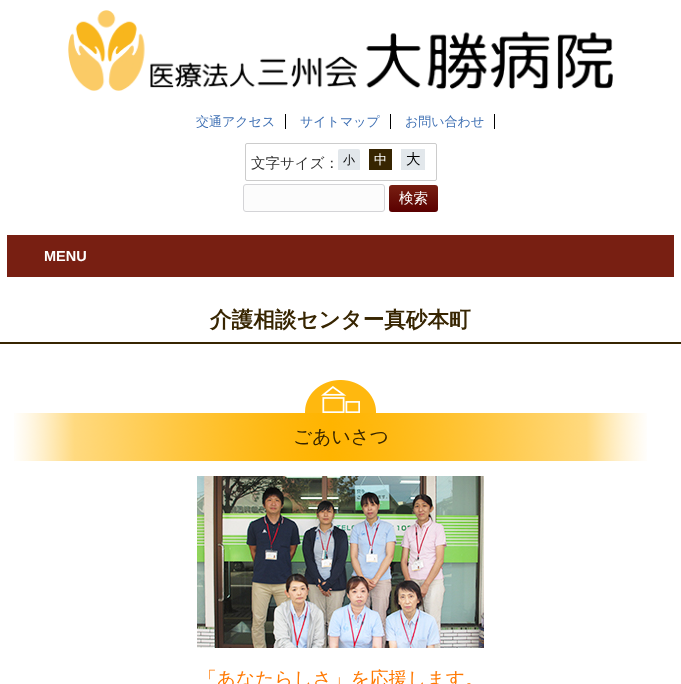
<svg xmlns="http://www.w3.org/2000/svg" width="681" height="684">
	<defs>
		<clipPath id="clip1"><rect x="338" y="149" width="93" height="21" /></clipPath>
		<linearGradient id="g1" gradientUnits="userSpaceOnUse" x1="414" y1="185" x2="414" y2="212"><stop offset="0" stop-color="#781F12" /><stop offset="1" stop-color="#5A0000" /></linearGradient>
	</defs>
	<rect width="100%" height="100%" fill="#FFFFFF" />
	<image x="68" y="10" width="545" height="81" href="assets/img1.png" />
	<text x="196" y="126" font-family="WenQuanYi Zen Hei" font-size="13" font-weight="500" fill="#4071B4">交通アクセス</text>
	<rect x="285" y="114" width="1" height="15" fill="#000000" />
	<text x="300" y="126" font-family="WenQuanYi Zen Hei" font-size="13" font-weight="500" fill="#4071B4">サイトマップ</text>
	<rect x="390" y="114" width="1" height="15" fill="#000000" />
	<text x="405" y="126" font-family="WenQuanYi Zen Hei" font-size="13" font-weight="500" fill="#4071B4">お問い合わせ</text>
	<rect x="494" y="114" width="1" height="15" fill="#000000" />
	<rect x="245.5" y="143.5" width="191" height="37" rx="1.5" fill="none" stroke="#CCCCCC" />
	<text x="251" y="168" font-family="WenQuanYi Zen Hei" font-size="14.5" font-weight="500" fill="#333333">文字サイズ：</text>
	<g clip-path="url(#clip1)">
		<rect x="338" y="149" width="22" height="22" rx="2" fill="#E2E7EB" />
	</g>
	<text x="343" y="164" font-family="WenQuanYi Zen Hei" font-size="12" font-weight="500" fill="#000000">小</text>
	<rect x="369" y="149" width="23" height="21" fill="#372501" />
	<text x="374" y="164" font-family="WenQuanYi Zen Hei" font-size="13" font-weight="500" fill="#FFFFFF">中</text>
	<rect x="401" y="149" width="24" height="21" fill="#E2E7EB" />
	<text x="406" y="164" font-family="WenQuanYi Zen Hei" font-size="14.5" font-weight="500" fill="#000000">大</text>
	<rect x="243.5" y="184.5" width="141" height="27" rx="2.5" fill="#FCFCFC" stroke="#D4D4D7" />
	<rect x="389" y="185" width="49" height="27" rx="3" fill="url(#g1)" />
	<text x="399" y="203" font-family="WenQuanYi Zen Hei" font-size="14.5" font-weight="500" fill="#FFFFFF">検索</text>
	<rect x="7" y="235" width="667" height="42" fill="#781F12" />
	<text x="44" y="261" font-family="Liberation Sans" font-size="14.5" font-weight="700" fill="#FFFFFF">MENU</text>
	<rect x="0" y="342" width="681" height="2" fill="#372501" />
	<text x="210" y="327" font-family="WenQuanYi Zen Hei" font-size="21.6" font-weight="700" fill="#372501">介護相談センター真砂本町</text>
	<image x="305" y="380" width="71" height="33" href="assets/img2.png" />
	<image x="14" y="413" width="633" height="48" href="assets/img3.png" />
	<text x="293" y="443" font-family="WenQuanYi Zen Hei" font-size="18.75" font-weight="500" fill="#372501">ごあいさつ</text>
	<image x="197" y="476" width="287" height="172" href="assets/img4.png" />
	<text x="198" y="685" font-family="WenQuanYi Zen Hei" font-size="18.75" font-weight="500" fill="#FF7800">「あなたらしさ」を応援します。</text>
</svg>
